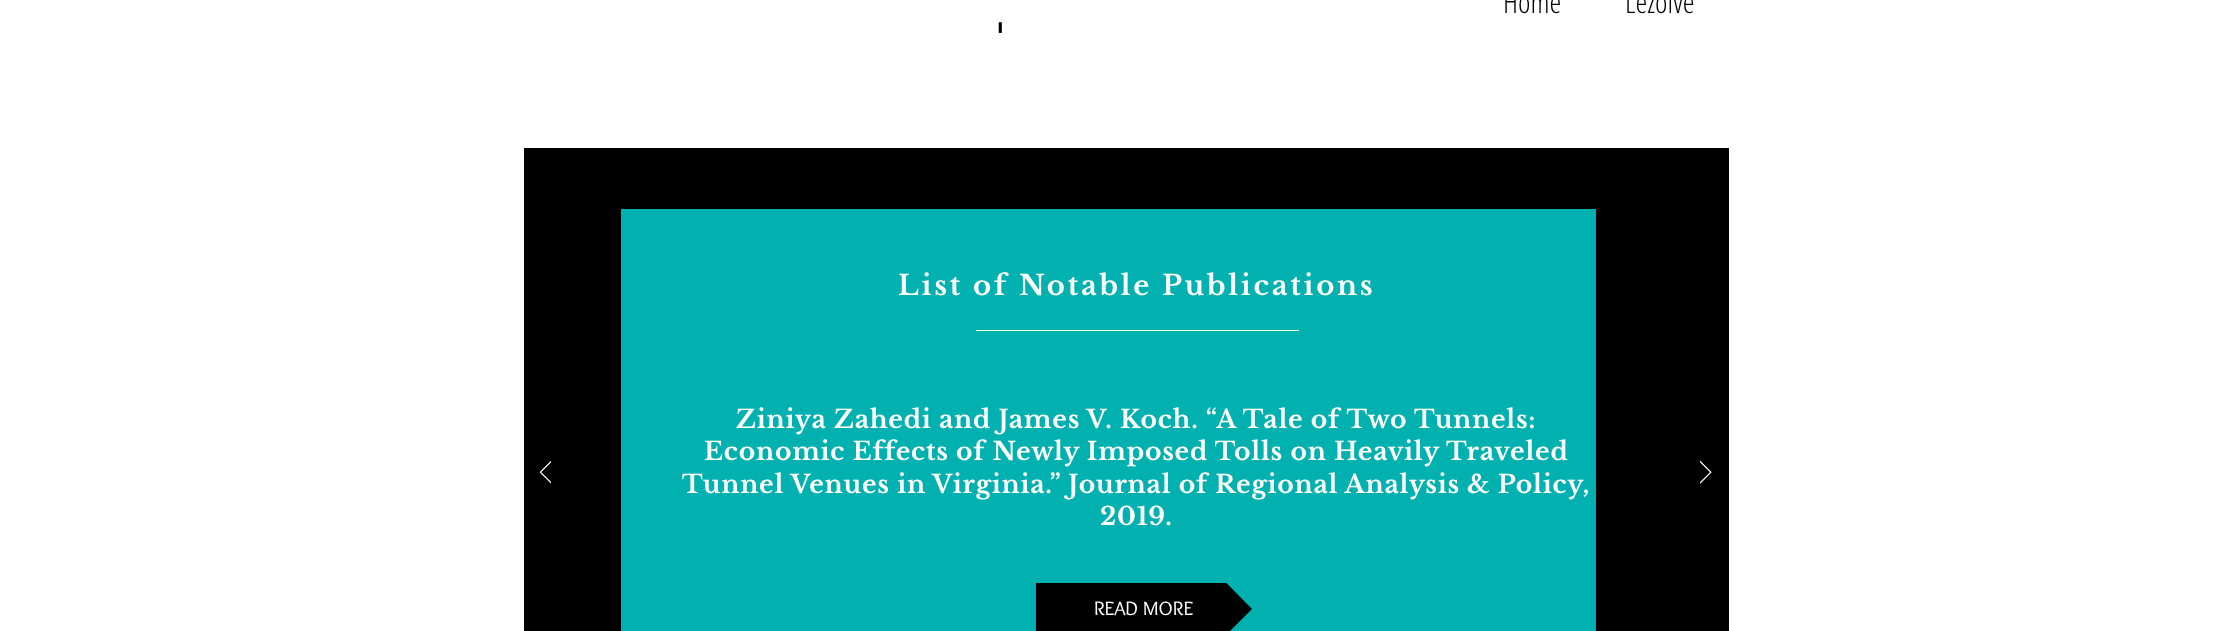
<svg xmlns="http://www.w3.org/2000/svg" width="2231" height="631">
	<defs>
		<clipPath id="clip1"><rect x="1036" y="583" width="217" height="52" /></clipPath>
	</defs>
	<rect width="100%" height="100%" fill="#FFFFFF" />
	<g font-family="Open Sans Condensed" font-size="30" font-weight="300" fill="#000000">
		<text x="1503" y="13">Home</text>
		<text x="1625" y="13">Lezolve</text>
	</g>
	<text x="996" y="30" font-family="'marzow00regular'" font-size="68" font-weight="700" letter-spacing="3" fill="#000000">,</text>
	<rect x="524" y="148" width="1205" height="483" fill="#000000" />
	<image x="540" y="460" width="11" height="24" href="assets/img1.png" />
	<rect x="621" y="209" width="975" height="422" fill="#01B1AF" />
	<text x="898" y="295" font-family="Libre Baskerville" font-size="27.5" font-weight="700" letter-spacing="2.75" fill="#FFFFFF">List of Notable Publications</text>
	<rect x="976" y="330" width="323" height="1" fill="#FFFFFF" />
	<g font-family="Libre Baskerville" font-size="25" font-weight="700" letter-spacing="0.75" fill="#FFFFFF">
		<text x="736" y="428">Ziniya Zahedi and James V. Koch. “A Tale of Two Tunnels:</text>
		<text x="704" y="460">Economic Effects of Newly Imposed Tolls on Heavily Traveled</text>
		<text x="682" y="493">Tunnel Venues in Virginia.” Journal of Regional Analysis &amp; Policy,</text>
		<text x="1100" y="525">2019.</text>
	</g>
	<rect x="1036" y="583" width="154" height="48" fill="#000000" />
	<g clip-path="url(#clip1)">
		<path d="M1252 609H1190V546Z" fill="#000000" />
	</g>
	<path d="M1190 609H1252L1190 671Z" fill="#000000" />
	<text x="1094" y="615" font-family="Overlock" font-size="20" fill="#FFFFFF">READ MORE</text>
	<image x="1700" y="460" width="12" height="24" href="assets/img2.png" />
</svg>
